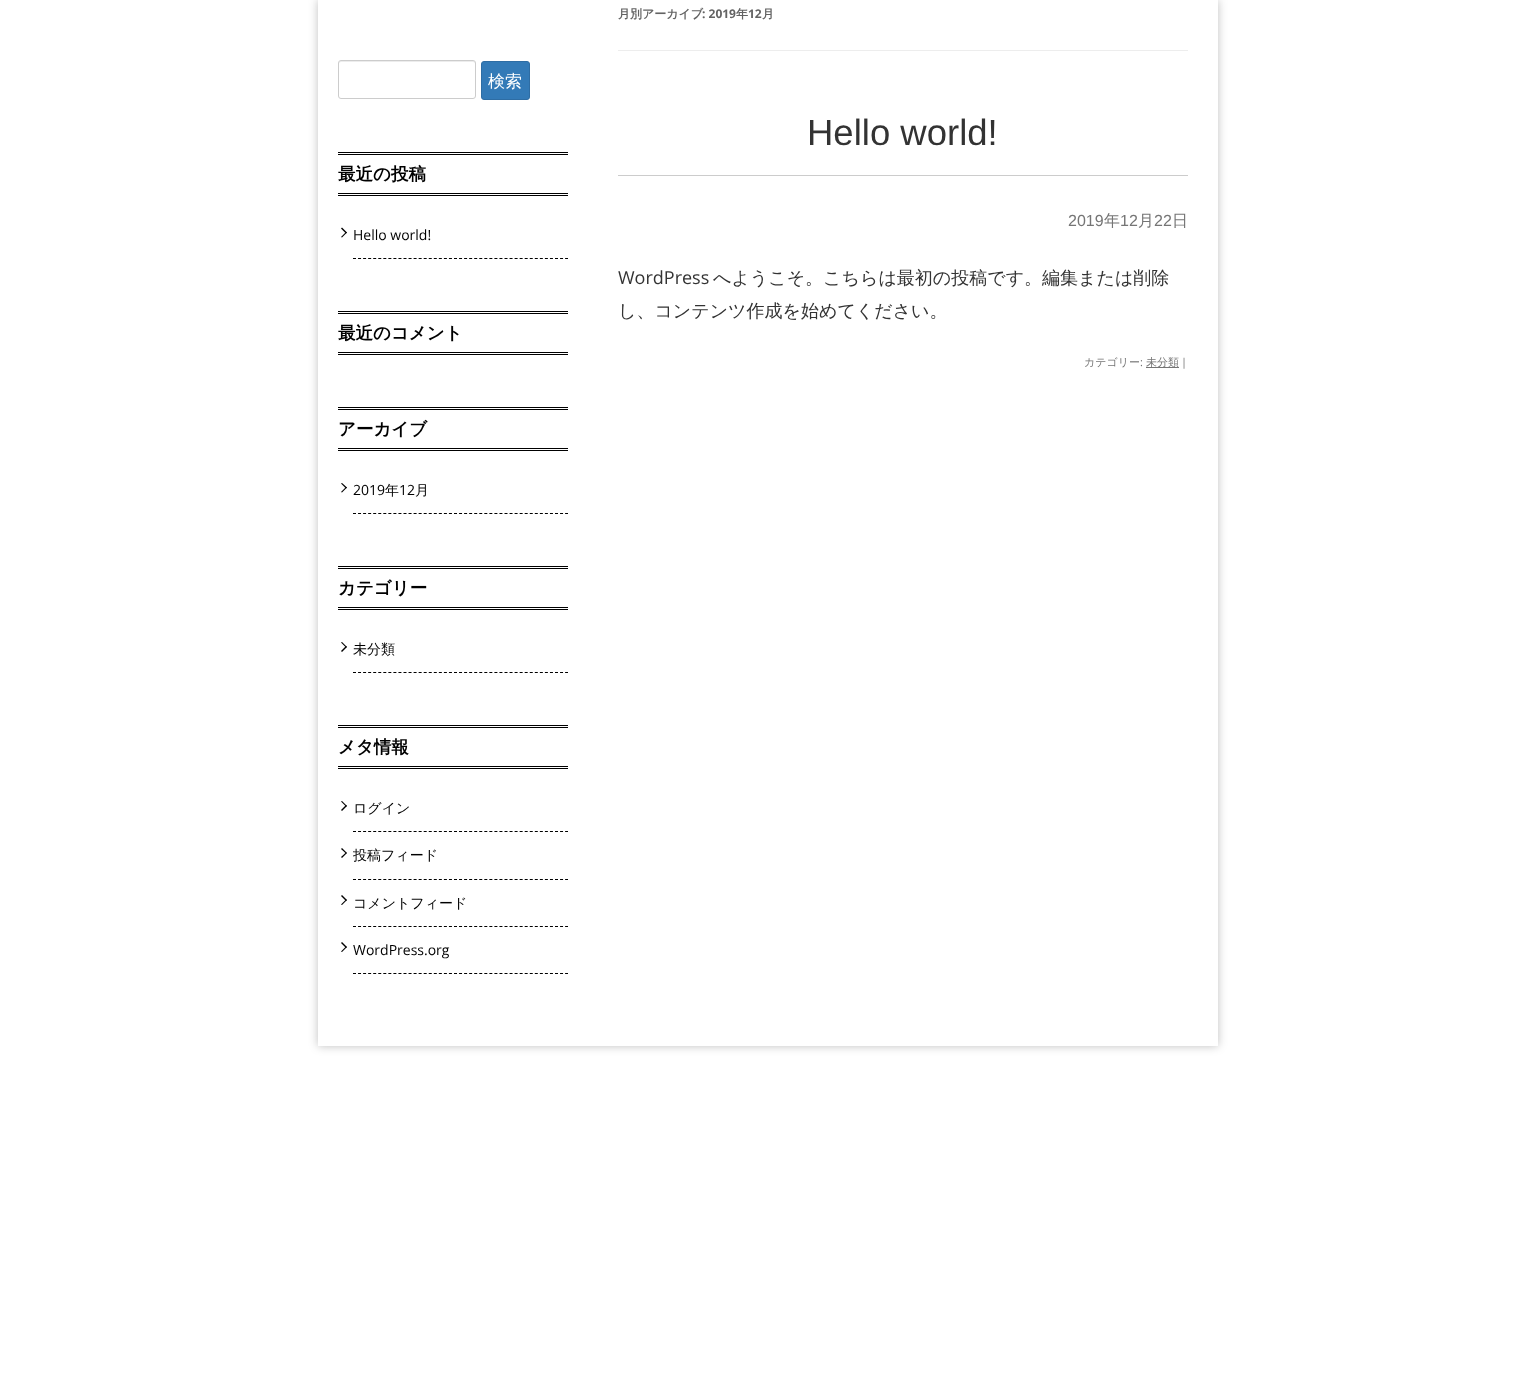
<svg xmlns="http://www.w3.org/2000/svg" width="1535" height="1376">
	<defs>
		<clipPath id="clip1"><path d="M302 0H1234V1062H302ZM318 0H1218V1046H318Z" clip-rule="evenodd" /></clipPath>
	</defs>
	<rect width="100%" height="100%" fill="#FFFFFF" />
	<g clip-path="url(#clip1)">
		<rect x="318" y="0" width="900" height="1046" fill="#000000" fill-opacity="0.25" filter="blur(5px)" />
	</g>
	<path d="M341 62H473C474 62 475 63 475 64C475 63 475 61 473 61H341C339 61 339 63 339 64C339 63 340 62 341 62Z" fill="#ECECEC" />
	<rect x="338.5" y="60.5" width="137" height="38" rx="2.5" fill="none" stroke="#CCCCCC" />
	<rect x="481.5" y="61.5" width="48" height="38" rx="2.5" fill="#337AB7" stroke="#2E6DA4" />
	<text x="488" y="87" font-family="WenQuanYi Zen Hei" font-size="17" font-weight="500" fill="#FFFFFF">検索</text>
	<rect x="338" y="152" width="230" height="1" fill="#000000" />
	<rect x="338" y="154" width="230" height="1" fill="#000000" />
	<rect x="338" y="193" width="230" height="1" fill="#000000" />
	<rect x="338" y="195" width="230" height="1" fill="#000000" />
	<text x="338" y="180" font-family="WenQuanYi Zen Hei" font-size="17.5" font-weight="700" fill="#000000">最近の投稿</text>
	<path d="M353 258.5H568" fill="none" stroke="#000000" stroke-dasharray="3 2.05" />
	<path d="M341 228.5L342 227.5L347 232.5L346 233.5Z" fill="#000000" />
	<path d="M341 237L346 232L347 232.5L342 237.5Z" fill="#000000" />
	<text x="353" y="240" font-family="Open Sans" font-size="14" fill="#000000">Hello world!</text>
	<rect x="338" y="311" width="230" height="1" fill="#000000" />
	<rect x="338" y="313" width="230" height="1" fill="#000000" />
	<rect x="338" y="352" width="230" height="1" fill="#000000" />
	<rect x="338" y="354" width="230" height="1" fill="#000000" />
	<text x="338" y="339" font-family="WenQuanYi Zen Hei" font-size="17.5" font-weight="700" fill="#000000">最近のコメント</text>
	<rect x="338" y="407" width="230" height="1" fill="#000000" />
	<rect x="338" y="409" width="230" height="1" fill="#000000" />
	<rect x="338" y="448" width="230" height="1" fill="#000000" />
	<rect x="338" y="450" width="230" height="1" fill="#000000" />
	<text x="338" y="435" font-family="WenQuanYi Zen Hei" font-size="17.5" font-weight="700" fill="#000000">アーカイブ</text>
	<path d="M353 513.5H568" fill="none" stroke="#000000" stroke-dasharray="3 2.05" />
	<path d="M341 483.5L342 483L347 487.5L346 488.5Z" fill="#000000" />
	<path d="M341 492L346 487L347 487.5L342 492.5Z" fill="#000000" />
	<text x="353" y="495" font-family="Open Sans" font-size="14" fill="#000000">2019</text>
	<text x="385" y="495" font-family="WenQuanYi Zen Hei" font-size="14" font-weight="500" fill="#000000">年</text>
	<text x="399" y="495" font-family="Open Sans" font-size="14" fill="#000000">12</text>
	<text x="415" y="495" font-family="WenQuanYi Zen Hei" font-size="14" font-weight="500" fill="#000000">月</text>
	<rect x="338" y="566" width="230" height="1" fill="#000000" />
	<rect x="338" y="568" width="230" height="1" fill="#000000" />
	<rect x="338" y="607" width="230" height="1" fill="#000000" />
	<rect x="338" y="609" width="230" height="1" fill="#000000" />
	<text x="338" y="594" font-family="WenQuanYi Zen Hei" font-size="17.5" font-weight="700" fill="#000000">カテゴリー</text>
	<path d="M353 672.5H568" fill="none" stroke="#000000" stroke-dasharray="3 2.05" />
	<path d="M341 642.5L342 642L347 647L346 647.5Z" fill="#000000" />
	<path d="M341 651L346 646L347 647L342 652Z" fill="#000000" />
	<text x="353" y="654" font-family="WenQuanYi Zen Hei" font-size="14" font-weight="500" fill="#000000">未分類</text>
	<rect x="338" y="725" width="230" height="1" fill="#000000" />
	<rect x="338" y="727" width="230" height="1" fill="#000000" />
	<rect x="338" y="766" width="230" height="1" fill="#000000" />
	<rect x="338" y="768" width="230" height="1" fill="#000000" />
	<text x="338" y="753" font-family="WenQuanYi Zen Hei" font-size="17.5" font-weight="700" fill="#000000">メタ情報</text>
	<path d="M353 831.5H568" fill="none" stroke="#000000" stroke-dasharray="3 2.05" />
	<path d="M341 801.5L342 801L347 806L346 806.5Z" fill="#000000" />
	<path d="M341 810L346 805L347 806L342 811Z" fill="#000000" />
	<text x="353" y="813" font-family="WenQuanYi Zen Hei" font-size="14" font-weight="500" fill="#000000">ログイン</text>
	<path d="M353 879.5H568" fill="none" stroke="#000000" stroke-dasharray="3 2.05" />
	<path d="M341 849L342 848L347 853L346 853.5Z" fill="#000000" />
	<path d="M341 857L346 852.5L347 853L342 858Z" fill="#000000" />
	<text x="353" y="860" font-family="WenQuanYi Zen Hei" font-size="14" font-weight="500" fill="#000000">投稿フィード</text>
	<path d="M353 926.5H568" fill="none" stroke="#000000" stroke-dasharray="3 2.05" />
	<path d="M341 896L342 895L347 900L346 901Z" fill="#000000" />
	<path d="M341 904.5L346 899.5L347 900L342 905Z" fill="#000000" />
	<text x="353" y="908" font-family="WenQuanYi Zen Hei" font-size="14" font-weight="500" fill="#000000">コメントフィード</text>
	<path d="M353 973.5H568" fill="none" stroke="#000000" stroke-dasharray="3 2.05" />
	<path d="M341 943L342 942L347 947L346 948Z" fill="#000000" />
	<path d="M341 951.5L346 946.5L347 947L342 952Z" fill="#000000" />
	<text x="353" y="955" font-family="Open Sans" font-size="14" fill="#000000">WordPress.org</text>
	<rect x="618" y="50" width="570" height="1" fill="#EDEDED" />
	<text x="618" y="18" font-family="WenQuanYi Zen Hei" font-size="12" font-weight="700" fill="#636363">月別アーカイブ</text>
	<text x="702" y="18" font-family="Open Sans" font-size="12" font-weight="700" fill="#636363">: 2019</text>
	<text x="736" y="18" font-family="WenQuanYi Zen Hei" font-size="12" font-weight="700" fill="#636363">年</text>
	<text x="748" y="18" font-family="Open Sans" font-size="12" font-weight="700" fill="#636363">12</text>
	<text x="762" y="18" font-family="WenQuanYi Zen Hei" font-size="12" font-weight="700" fill="#636363">月</text>
	<rect x="618" y="175" width="570" height="1" fill="#CCCCCC" />
	<text x="807" y="145" font-family="Liberation Sans" font-size="36.5" fill="#333333">Hello world!</text>
	<text x="1068" y="226" font-family="Liberation Sans" font-size="16" fill="#757575">2019</text>
	<text x="1104" y="226" font-family="WenQuanYi Zen Hei" font-size="16" font-weight="500" fill="#757575">年</text>
	<text x="1120" y="226" font-family="Liberation Sans" font-size="16" fill="#757575">12</text>
	<text x="1138" y="226" font-family="WenQuanYi Zen Hei" font-size="16" font-weight="500" fill="#757575">月</text>
	<text x="1154" y="226" font-family="Liberation Sans" font-size="16" fill="#757575">22</text>
	<text x="1172" y="226" font-family="WenQuanYi Zen Hei" font-size="16" font-weight="500" fill="#757575">日</text>
	<text x="618" y="284" font-family="Open Sans" font-size="18" fill="#333333">WordPress</text>
	<g font-family="WenQuanYi Zen Hei" font-size="18" font-weight="500" fill="#333333">
		<text x="713" y="284">へようこそ。こちらは最初の投稿です。編集または削除</text>
		<text x="618" y="317">し、コンテンツ作成を始めてください。</text>
	</g>
	<text x="1084" y="366" font-family="WenQuanYi Zen Hei" font-size="11" font-weight="500" fill="#757575">カテゴリー</text>
	<text x="1140" y="366" font-family="Open Sans" font-size="11" fill="#757575">:</text>
	<rect x="1146" y="367" width="33" height="1" fill="#757575" />
	<text x="1146" y="366" font-family="WenQuanYi Zen Hei" font-size="11" font-weight="500" fill="#757575">未分類</text>
	<text x="1181" y="366" font-family="Open Sans" font-size="11" fill="#757575">|</text>
</svg>
